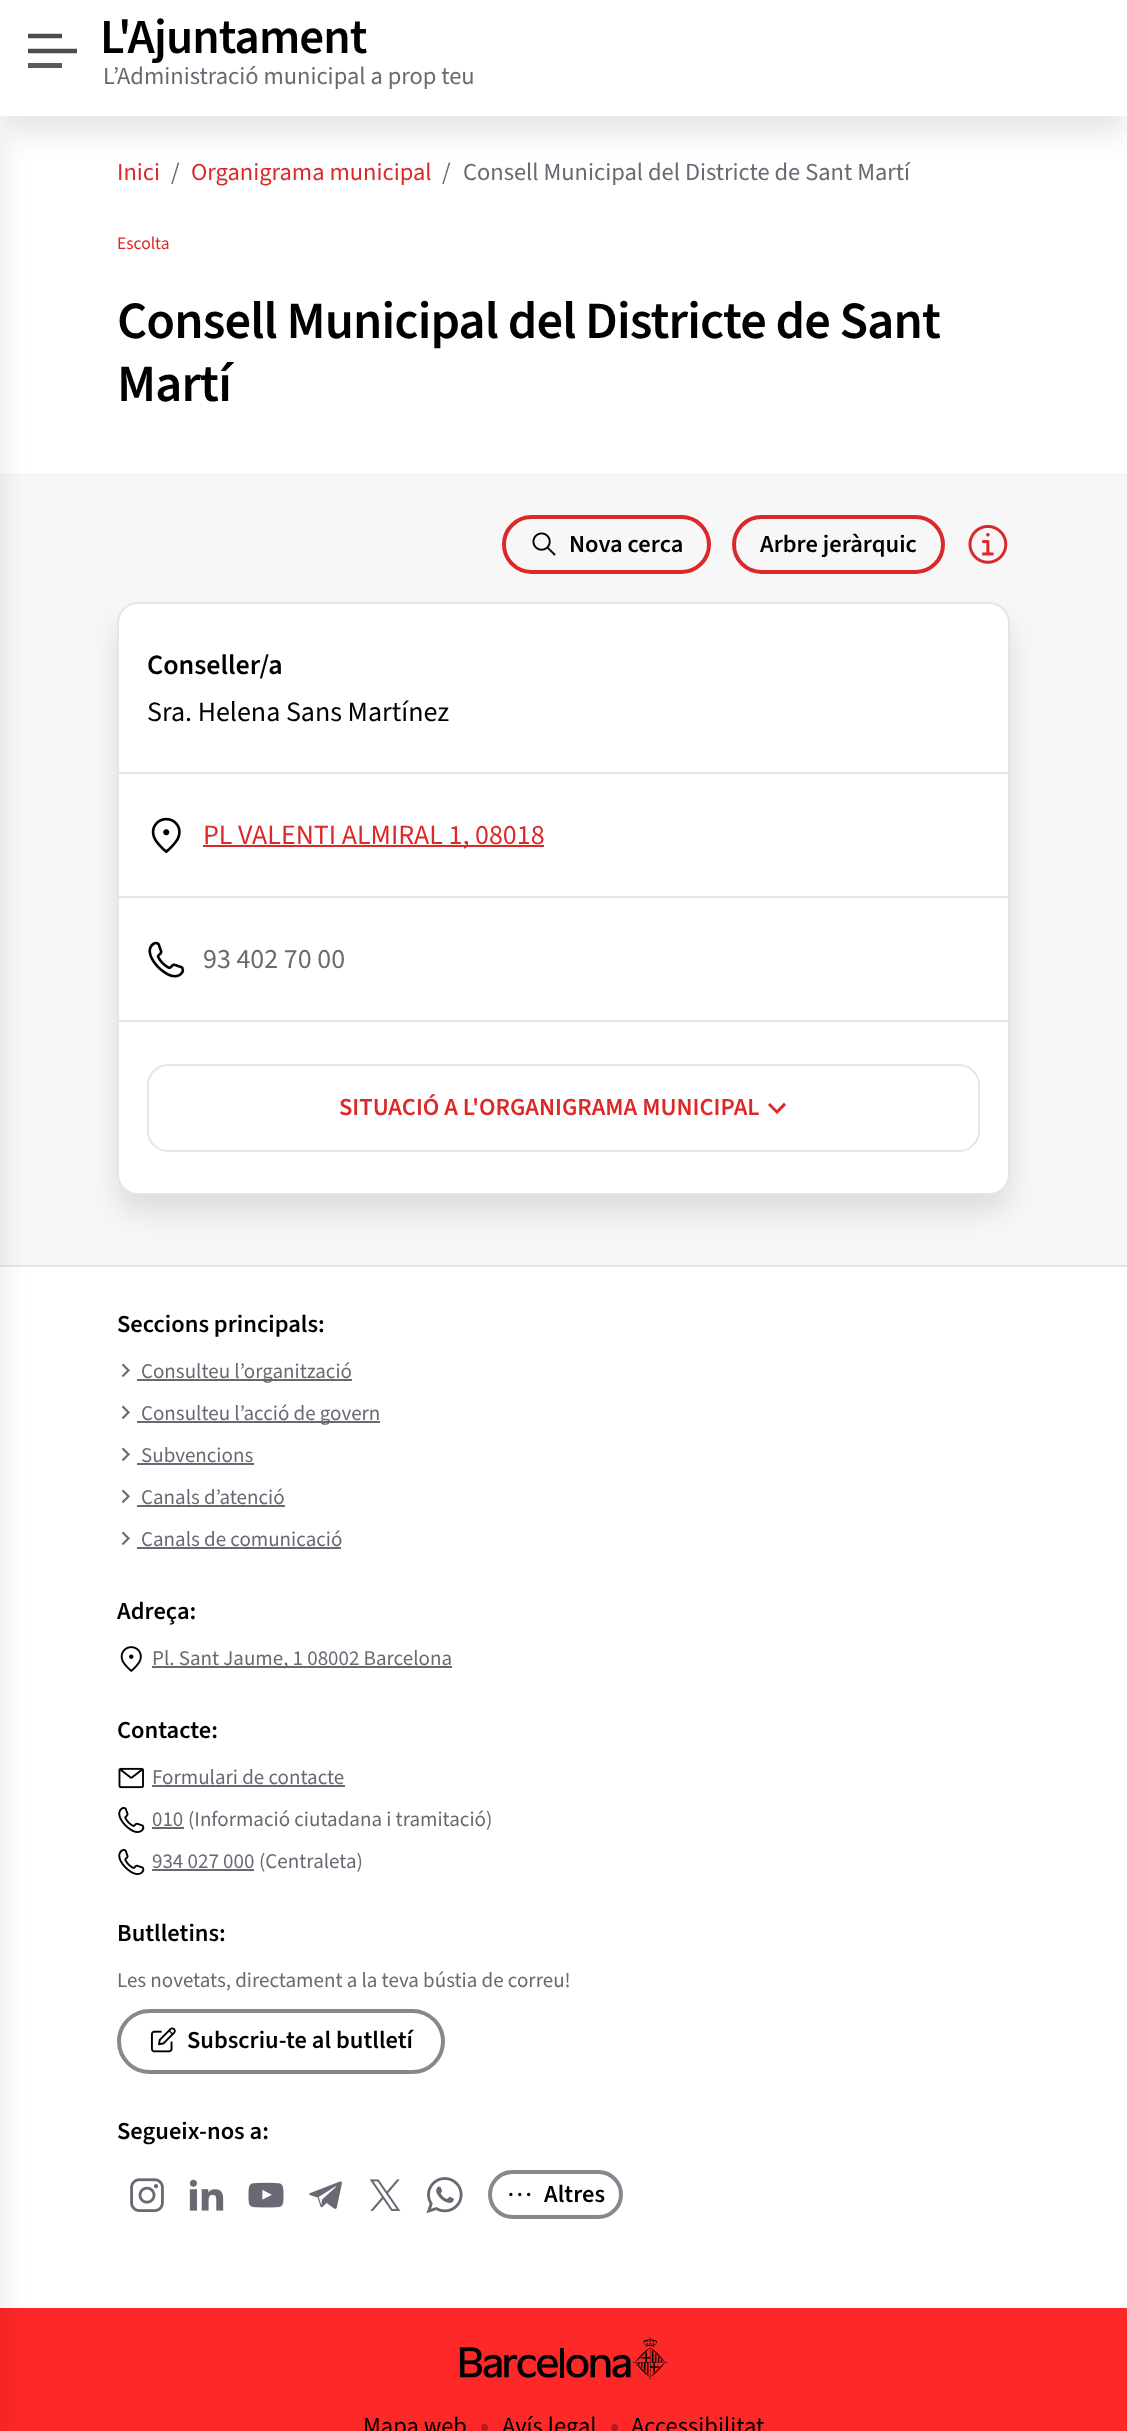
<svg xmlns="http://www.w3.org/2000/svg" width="1127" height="2431">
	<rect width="100%" height="100%" fill="#FFFFFF" />
	<rect x="0" y="18" width="1127" height="115" fill="#000000" fill-opacity="0.1" filter="blur(14px)" />
	<rect x="0" y="473" width="1127" height="792" fill="#F7F7F7" />
	<rect x="0" y="1265" width="1127" height="2" fill="#E5E5E5" />
	<rect x="0" y="2308" width="1127" height="123" fill="#FF2828" />
	<rect x="-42" y="133" width="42" height="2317" fill="#000000" fill-opacity="0.1" filter="blur(14px)" />
	<rect x="0" y="0" width="1127" height="116" fill="#FFFFFF" />
	<path d="M28 51H77M28 36H62" fill="none" stroke="#4B4B52" stroke-width="4.6" />
	<rect x="28" y="63" width="34" height="5" fill="#595960" />
	<text x="100" y="53" font-family="'Source Sans 3'" font-size="49" font-weight="600" letter-spacing="-0.9" fill="#000000">L'Ajuntament</text>
	<text x="103" y="84" font-family="'Source Sans 3'" font-size="24.5" fill="#696973">L’Administració municipal a prop teu</text>
	<text x="117" y="180" font-family="'Source Sans 3'" font-size="24.5" fill="#DB2828">Inici</text>
	<text x="171" y="180" font-family="'Source Sans 3'" font-size="24.5" fill="#696973">/</text>
	<text x="191" y="180" font-family="'Source Sans 3'" font-size="24.5" fill="#DB2828">Organigrama municipal</text>
	<g font-family="'Source Sans 3'" font-size="24.5" fill="#696973">
		<text x="442" y="180">/</text>
		<text x="463" y="180">Consell Municipal del Districte de Sant Martí</text>
	</g>
	<text x="117" y="249" font-family="'Source Sans 3'" font-size="17.5" fill="#DB2828">Escolta</text>
	<g font-family="'Source Sans 3'" font-size="52.5" font-weight="600" letter-spacing="-0.9" fill="#000000">
		<text x="117" y="338">Consell Municipal del Districte de Sant</text>
		<text x="117" y="401">Martí</text>
	</g>
	<rect x="504" y="517" width="205" height="55" rx="27.5" fill="none" stroke="#DB2828" stroke-width="4" />
	<image x="532" y="532" width="24" height="24" href="assets/img1.png" />
	<text x="569" y="552" font-family="'Source Sans 3'" font-size="24.5" font-weight="600" fill="#000000">Nova cerca</text>
	<rect x="734" y="517" width="209" height="55" rx="27.5" fill="none" stroke="#DB2828" stroke-width="4" />
	<text x="760" y="552" font-family="'Source Sans 3'" font-size="24.5" font-weight="600" fill="#000000">Arbre jeràrquic</text>
	<image x="968" y="525" width="40" height="39" href="assets/img2.png" />
	<rect x="117" y="620" width="893" height="593" rx="21" fill="#000000" fill-opacity="0.1" filter="blur(14px)" />
	<rect x="118" y="603" width="891" height="591" rx="20" fill="#FFFFFF" stroke="#E5E5E5" stroke-width="2" />
	<text x="147" y="674" font-family="'Source Sans 3'" font-size="28" font-weight="600" fill="#000000">Conseller/a</text>
	<text x="147" y="721" font-family="'Source Sans 3'" font-size="28" fill="#000000">Sra. Helena Sans Martínez</text>
	<rect x="119" y="772" width="889" height="2" fill="#E5E5E5" />
	<image x="151" y="817" width="30" height="37" href="assets/img3.png" />
	<rect x="203" y="845" width="341" height="2" fill="#DB2828" />
	<text x="203" y="844" font-family="'Source Sans 3'" font-size="28" fill="#DB2828">PL VALENTI ALMIRAL 1, 08018</text>
	<rect x="119" y="896" width="889" height="2" fill="#E5E5E5" />
	<image x="148" y="941" width="37" height="37" href="assets/img4.png" />
	<text x="203" y="968" font-family="'Source Sans 3'" font-size="28" fill="#696973">93 402 70 00</text>
	<rect x="119" y="1020" width="889" height="2" fill="#E5E5E5" />
	<rect x="148" y="1065" width="831" height="86" rx="20" fill="none" stroke="#E5E5E5" stroke-width="2" />
	<text x="339" y="1115" font-family="'Source Sans 3'" font-size="24.5" font-weight="600" fill="#DB2828">SITUACIÓ A L'ORGANIGRAMA MUNICIPAL</text>
	<path d="M777 1114L768 1105L770 1103L777 1110L784 1102.5L786 1105Z" fill="#DB2828" />
	<text x="117" y="1332" font-family="'Source Sans 3'" font-size="24.5" font-weight="600" fill="#000000">Seccions principals:</text>
	<image x="121" y="1363" width="9" height="15" href="assets/img5.png" />
	<rect x="137" y="1379" width="215" height="2" fill="#696973" />
	<text x="141" y="1378" font-family="'Source Sans 3'" font-size="21" fill="#696973">Consulteu l’organització</text>
	<image x="121" y="1405" width="9" height="15" href="assets/img5.png" />
	<rect x="137" y="1421" width="243" height="2" fill="#696973" />
	<text x="141" y="1420" font-family="'Source Sans 3'" font-size="21" fill="#696973">Consulteu l’acció de govern</text>
	<image x="121" y="1447" width="9" height="15" href="assets/img5.png" />
	<text x="141" y="1462" font-family="'Source Sans 3'" font-size="21" fill="#696973">Subvencions</text>
	<rect x="137" y="1463" width="117" height="2" fill="#696973" />
	<image x="121" y="1489" width="9" height="15" href="assets/img5.png" />
	<text x="141" y="1504" font-family="'Source Sans 3'" font-size="21" fill="#696973">Canals d’atenció</text>
	<rect x="137" y="1505" width="148" height="2" fill="#696973" />
	<image x="121" y="1531" width="9" height="15" href="assets/img5.png" />
	<text x="141" y="1546" font-family="'Source Sans 3'" font-size="21" fill="#696973">Canals de comunicació</text>
	<rect x="137" y="1547" width="204" height="2" fill="#696973" />
	<text x="117" y="1619" font-family="'Source Sans 3'" font-size="24.5" font-weight="600" fill="#000000">Adreça:</text>
	<image x="120" y="1646" width="22" height="26" href="assets/img6.png" />
	<rect x="152" y="1666" width="300" height="2" fill="#696973" />
	<text x="152" y="1665" font-family="'Source Sans 3'" font-size="21" fill="#696973">Pl. Sant Jaume, 1 08002 Barcelona</text>
	<text x="117" y="1738" font-family="'Source Sans 3'" font-size="24.5" font-weight="600" fill="#000000">Contacte:</text>
	<image x="118" y="1767" width="26" height="22" href="assets/img7.png" />
	<text x="152" y="1784" font-family="'Source Sans 3'" font-size="21" fill="#696973">Formulari de contacte</text>
	<rect x="152" y="1785" width="193" height="2" fill="#696973" />
	<image x="118" y="1807" width="27" height="26" href="assets/img8.png" />
	<text x="152" y="1826" font-family="'Source Sans 3'" font-size="21" fill="#696973">010</text>
	<rect x="152" y="1827" width="32" height="2" fill="#696973" />
	<text x="188" y="1826" font-family="'Source Sans 3'" font-size="21" fill="#696973">(Informació ciutadana i tramitació)</text>
	<image x="118" y="1849" width="27" height="26" href="assets/img8.png" />
	<text x="152" y="1868" font-family="'Source Sans 3'" font-size="21" fill="#696973">934 027 000</text>
	<rect x="152" y="1869" width="102" height="2" fill="#696973" />
	<text x="259" y="1868" font-family="'Source Sans 3'" font-size="21" fill="#696973">(Centraleta)</text>
	<text x="117" y="1941" font-family="'Source Sans 3'" font-size="24.5" font-weight="600" fill="#000000">Butlletins:</text>
	<text x="117" y="1987" font-family="'Source Sans 3'" font-size="21" fill="#696973">Les novetats, directament a la teva bústia de correu!</text>
	<rect x="119" y="2011" width="324" height="61" rx="30.5" fill="none" stroke="#87878F" stroke-width="4" />
	<image x="150" y="2027" width="26" height="26" href="assets/img9.png" />
	<g font-family="'Source Sans 3'" font-size="24.5" font-weight="600" fill="#000000">
		<text x="187" y="2048">Subscriu-te al butlletí</text>
		<text x="117" y="2139">Segueix-nos a:</text>
	</g>
	<image x="130" y="2178" width="34" height="34" href="assets/img10.png" />
	<image x="189" y="2179" width="35" height="32" href="assets/img11.png" />
	<image x="248" y="2182" width="36" height="26" href="assets/img12.png" />
	<image x="309" y="2181" width="33" height="28" href="assets/img13.png" />
	<image x="369" y="2179" width="32" height="32" href="assets/img14.png" />
	<image x="426" y="2177" width="37" height="37" href="assets/img15.png" />
	<rect x="490" y="2172" width="131" height="45" rx="22.5" fill="none" stroke="#87878F" stroke-width="4" />
	<image x="509" y="2192" width="22" height="5" href="assets/img16.png" />
	<text x="544" y="2202" font-family="'Source Sans 3'" font-size="24.5" font-weight="600" fill="#000000">Altres</text>
	<image x="459" y="2337" width="209" height="43" href="assets/img17.png" />
	<text x="363" y="2434" font-family="'Source Sans 3'" font-size="24.5" fill="#000000">Mapa web</text>
	<circle cx="484.5" cy="2427.5" r="3.5" fill="#B31C1C" />
	<text x="502" y="2434" font-family="'Source Sans 3'" font-size="24.5" fill="#000000">Avís legal</text>
	<circle cx="614.5" cy="2427.5" r="3.5" fill="#B31C1C" />
	<text x="631" y="2434" font-family="'Source Sans 3'" font-size="24.5" fill="#000000">Accessibilitat</text>
</svg>
